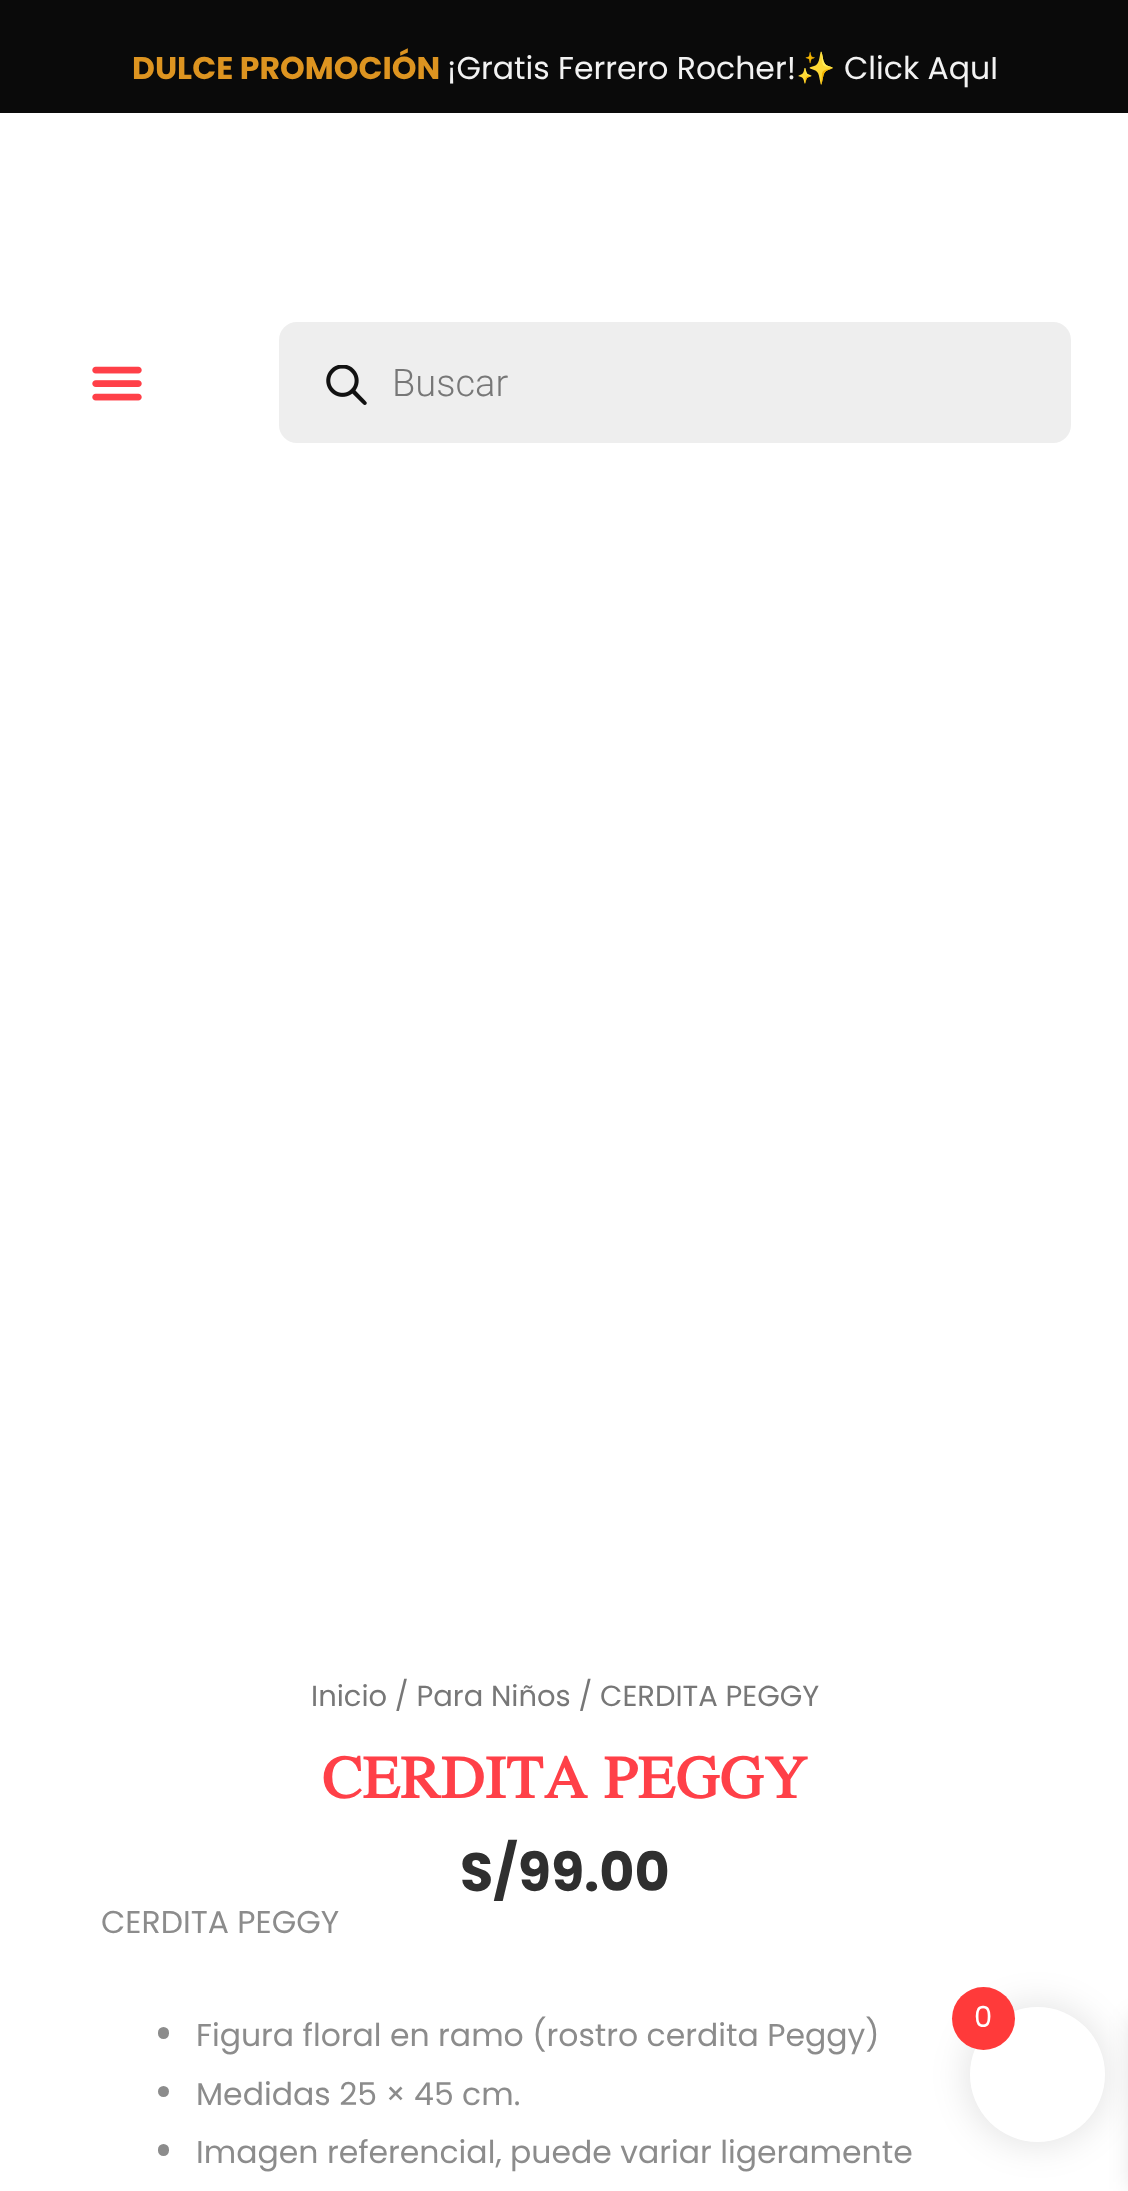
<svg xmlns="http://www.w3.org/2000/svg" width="1128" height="2191">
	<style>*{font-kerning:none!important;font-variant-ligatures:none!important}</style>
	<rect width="100%" height="100%" fill="#FFFFFF" />
	<rect x="0" y="0" width="1128" height="113" fill="#0A0A0A" />
	<text x="132" y="79" font-family="Poppins" font-size="31.5" font-weight="700" fill="#DD9420">DULCE PROMOCIÓN</text>
	<text x="447" y="79" font-family="Poppins" font-size="31.5" fill="#F2F2F2">¡Gratis Ferrero Rocher!</text>
	<text x="796" y="79" font-family="Noto Color Emoji" font-size="31.5" fill="#F2F2F2">✨</text>
	<text x="844" y="79" font-family="Poppins" font-size="31.5" fill="#F2F2F2">Click AquI</text>
	<image x="92" y="366" width="50" height="35" href="assets/img1.png" />
	<rect x="279" y="322" width="792" height="121" rx="18" fill="#EEEEEE" />
	<image x="326" y="365" width="41" height="40" href="assets/img2.png" />
	<text x="392" y="396" font-family="Roboto" font-size="38" font-weight="300" fill="#777777">Buscar</text>
	<text x="311" y="1706" font-family="Poppins" font-size="29" fill="#777777">Inicio / Para Niños / CERDITA PEGGY</text>
	<text x="322" y="1798" font-family="Jomolhari" font-size="54" font-weight="700" letter-spacing="0.7" fill="#FF4048">CERDITA PEGGY</text>
	<text x="460" y="1891" font-family="Poppins" font-size="54" font-weight="700" fill="#2F2F2F">S/99.00</text>
	<text x="101" y="1933" font-family="Poppins" font-size="31.5" fill="#8C8C8C">CERDITA PEGGY</text>
	<rect x="158" y="2027" width="11" height="12" rx="5.5" fill="#8C8C8C" />
	<text x="196" y="2046" font-family="Poppins" font-size="31.5" fill="#8C8C8C">Figura floral en ramo (rostro cerdita Peggy)</text>
	<circle cx="163.5" cy="2091.5" r="5.5" fill="#8C8C8C" />
	<text x="196" y="2105" font-family="Poppins" font-size="31.5" fill="#8C8C8C">Medidas 25 × 45 cm.</text>
	<rect x="158" y="2144" width="11" height="12" rx="5.5" fill="#8C8C8C" />
	<text x="196" y="2163" font-family="Poppins" font-size="31.5" fill="#8C8C8C">Imagen referencial, puede variar ligeramente</text>
	<rect x="965" y="2003" width="144" height="144" rx="72" fill="#000000" fill-opacity="0.1" filter="blur(17px)" />
	<rect x="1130" y="2016" width="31" height="173" fill="#000000" fill-opacity="0.1" filter="blur(11px)" />
	<circle cx="1037.5" cy="2074.5" r="67.5" fill="#FFFFFF" />
	<circle cx="983.5" cy="2018.5" r="31.5" fill="#FF3A3A" />
	<text x="974" y="2027" font-family="Poppins" font-size="29" fill="#FFFFFF">0</text>
</svg>
